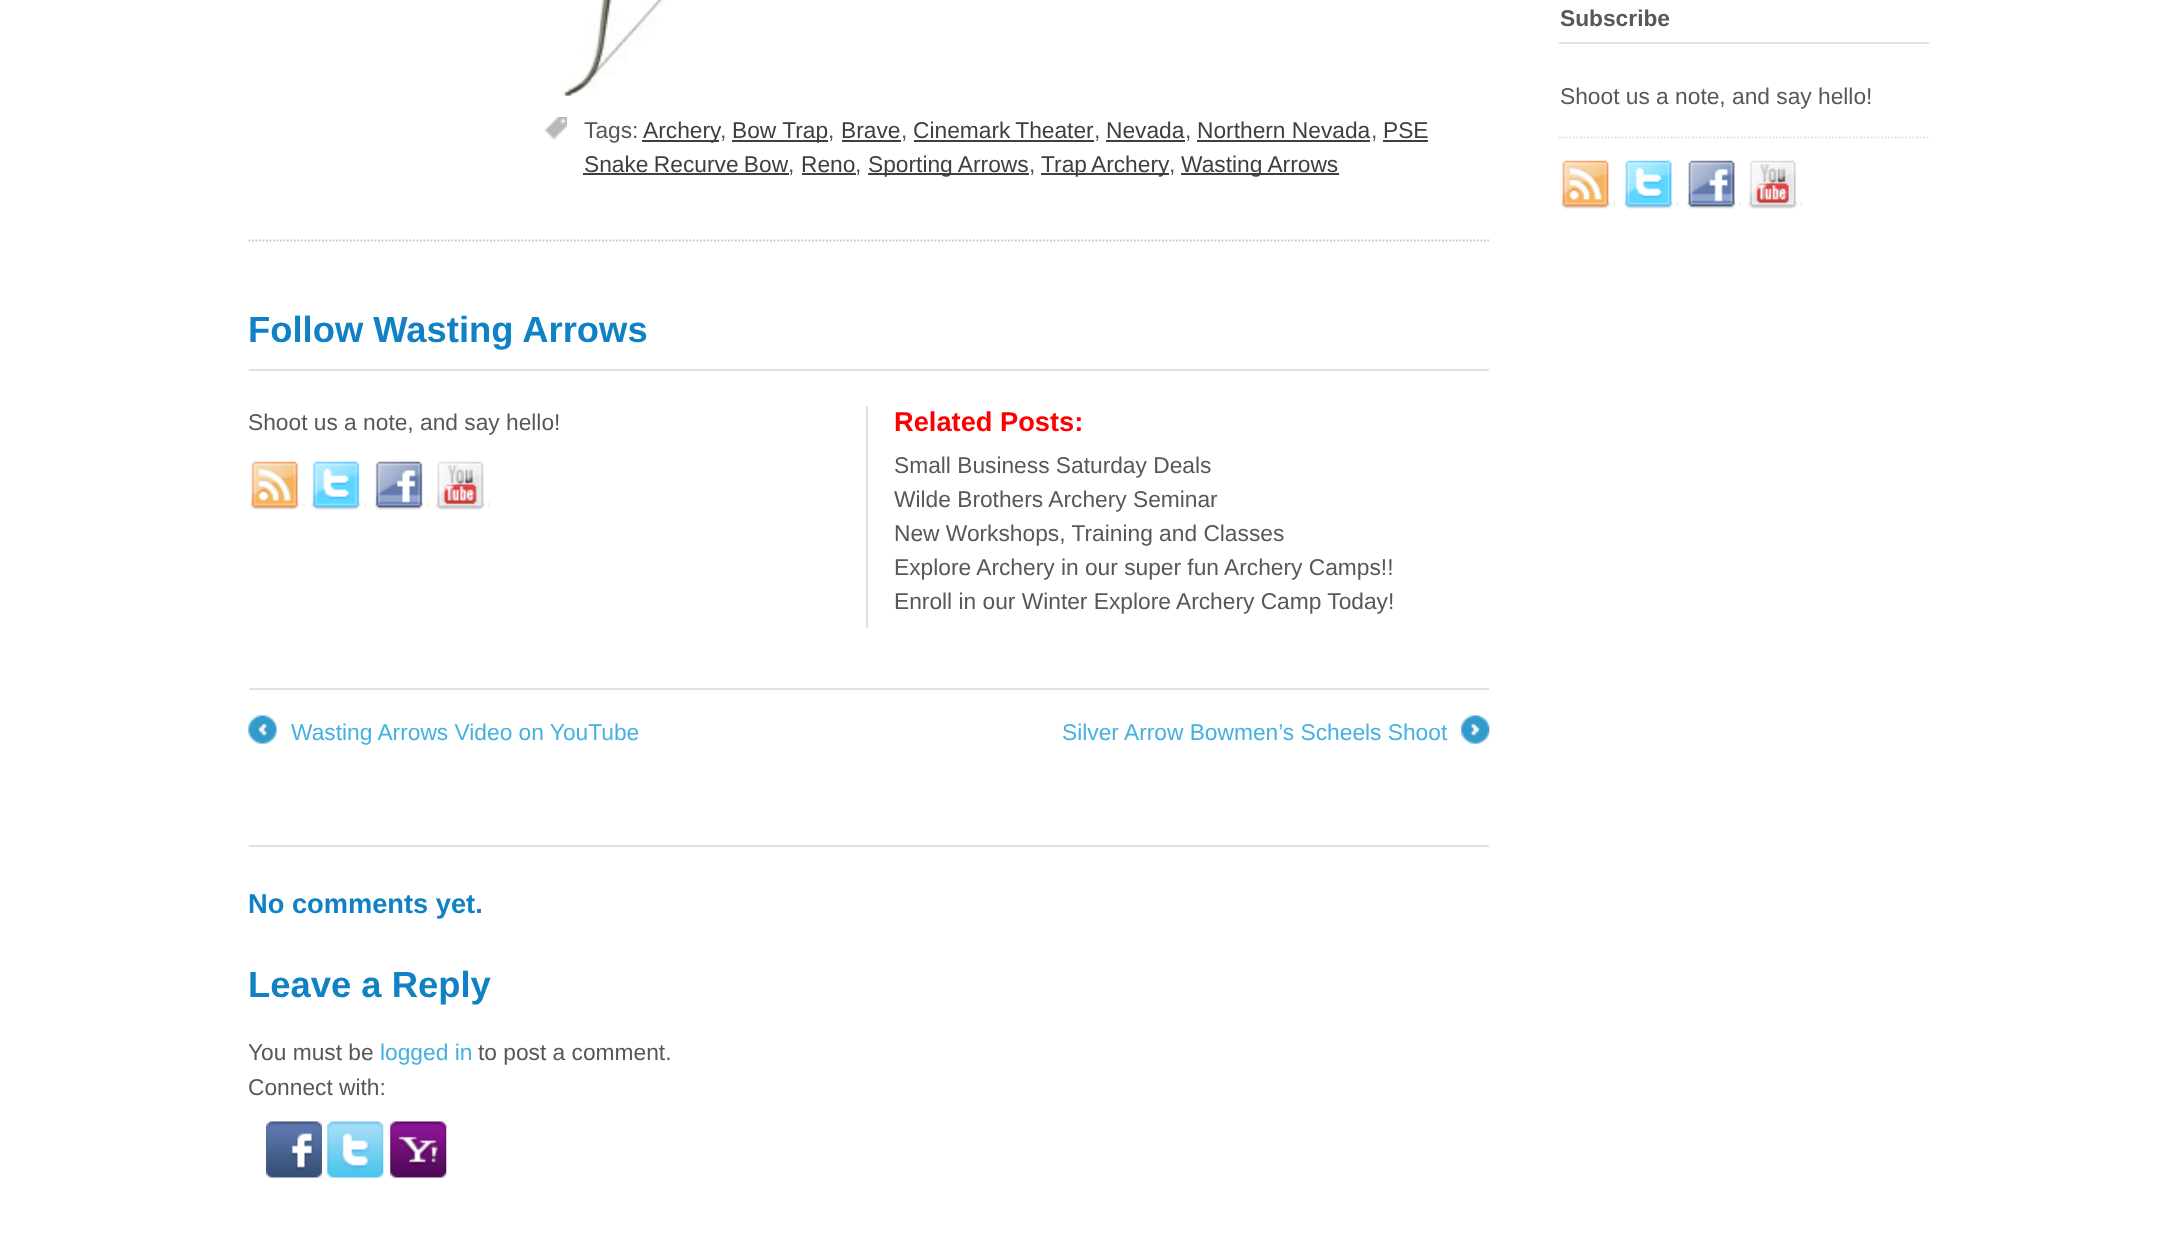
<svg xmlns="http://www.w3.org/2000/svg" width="2175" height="1233">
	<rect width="100%" height="100%" fill="#FFFFFF" />
	<rect x="1559" y="42" width="370" height="2" fill="#E1E1E1" />
	<text x="1560" y="26" font-family="Arimo" font-size="22.75" font-weight="700" fill="#585858">Subscribe</text>
	<text x="1560" y="104" font-family="Arimo" font-size="22.75" fill="#585858">Shoot us a note, and say hello!</text>
	<path d="M1559 137.5H1928.5" fill="none" stroke="#E1E1E1" stroke-width="1.8" stroke-dasharray="1.75 1.75" />
	<image x="1561" y="160" width="54" height="49" href="assets/img1.png" />
	<image x="1624" y="160" width="54" height="49" href="assets/img2.png" />
	<image x="1687" y="160" width="54" height="49" href="assets/img3.png" />
	<image x="1748" y="160" width="55" height="49" href="assets/img4.png" />
	<path d="M248.5 240.5H1489" fill="none" stroke="#C8C8C8" stroke-width="1.8" stroke-dasharray="1.75 1.75" />
	<image x="561" y="0" width="107" height="96" href="assets/img5.png" />
	<image x="544" y="117" width="23" height="23" href="assets/img6.png" />
	<text x="584" y="138" font-family="Arimo" font-size="22.75" fill="#585858">Tags:</text>
	<rect x="642" y="140" width="77" height="2" fill="#3F3F3F" />
	<text x="643" y="138" font-family="Arimo" font-size="22.75" fill="#3F3F3F">Archery</text>
	<text x="720" y="138" font-family="Arimo" font-size="22.75" fill="#585858">,</text>
	<rect x="732" y="140" width="96" height="2" fill="#3F3F3F" />
	<text x="732" y="138" font-family="Arimo" font-size="22.75" fill="#3F3F3F">Bow Trap</text>
	<text x="828" y="138" font-family="Arimo" font-size="22.75" fill="#585858">,</text>
	<text x="841" y="138" font-family="Arimo" font-size="22.75" fill="#3F3F3F">Brave</text>
	<rect x="842" y="140" width="59" height="2" fill="#3F3F3F" />
	<text x="901" y="138" font-family="Arimo" font-size="22.75" fill="#585858">,</text>
	<text x="913" y="138" word-spacing="-1" font-family="Arimo" font-size="22.75" fill="#3F3F3F">Cinemark Theater</text>
	<rect x="914" y="140" width="180" height="2" fill="#3F3F3F" />
	<text x="1094" y="138" font-family="Arimo" font-size="22.75" fill="#585858">,</text>
	<text x="1106" y="138" font-family="Arimo" font-size="22.75" fill="#3F3F3F">Nevada</text>
	<rect x="1106" y="140" width="79" height="2" fill="#3F3F3F" />
	<text x="1185" y="138" font-family="Arimo" font-size="22.75" fill="#585858">,</text>
	<text x="1197" y="138" font-family="Arimo" font-size="22.75" fill="#3F3F3F">Northern Nevada</text>
	<rect x="1197" y="140" width="173" height="2" fill="#3F3F3F" />
	<text x="1371" y="138" font-family="Arimo" font-size="22.75" fill="#585858">,</text>
	<text x="1383" y="138" font-family="Arimo" font-size="22.75" fill="#3F3F3F">PSE</text>
	<rect x="1383" y="140" width="45" height="2" fill="#3F3F3F" />
	<text x="584" y="172" word-spacing="-1" font-family="Arimo" font-size="22.75" fill="#3F3F3F">Snake Recurve Bow</text>
	<rect x="583" y="173" width="206" height="2" fill="#3F3F3F" />
	<text x="788" y="172" font-family="Arimo" font-size="22.75" fill="#585858">,</text>
	<text x="801" y="172" font-family="Arimo" font-size="22.75" fill="#3F3F3F">Reno</text>
	<rect x="802" y="173" width="54" height="2" fill="#3F3F3F" />
	<text x="855" y="172" font-family="Arimo" font-size="22.75" fill="#585858">,</text>
	<rect x="868" y="173" width="161" height="2" fill="#3F3F3F" />
	<text x="868" y="172" font-family="Arimo" font-size="22.75" fill="#3F3F3F">Sporting Arrows</text>
	<text x="1029" y="172" font-family="Arimo" font-size="22.75" fill="#585858">,</text>
	<rect x="1041" y="173" width="128" height="2" fill="#3F3F3F" />
	<text x="1041" y="172" word-spacing="-1" font-family="Arimo" font-size="22.75" fill="#3F3F3F">Trap Archery</text>
	<text x="1169" y="172" font-family="Arimo" font-size="22.75" fill="#585858">,</text>
	<rect x="1181" y="173" width="158" height="2" fill="#3F3F3F" />
	<text x="1181" y="172" font-family="Arimo" font-size="22.75" fill="#3F3F3F">Wasting Arrows</text>
	<rect x="249" y="369" width="1240" height="2" fill="#E1E1E1" />
	<text x="248" y="342" font-family="Arimo" font-size="36.4" font-weight="700" fill="#1081C5">Follow Wasting Arrows</text>
	<text x="248" y="430" font-family="Arimo" font-size="22.75" fill="#585858">Shoot us a note, and say hello!</text>
	<image x="250" y="461" width="55" height="49" href="assets/img7.png" />
	<image x="311" y="461" width="55" height="49" href="assets/img8.png" />
	<image x="374" y="461" width="55" height="49" href="assets/img9.png" />
	<image x="435" y="461" width="55" height="49" href="assets/img10.png" />
	<rect x="866" y="406" width="2" height="222" fill="#E1E1E1" />
	<text x="894" y="431" font-family="Arimo" font-size="27.25" font-weight="700" fill="#FF0000">Related Posts:</text>
	<g font-family="Arimo" font-size="22.75" fill="#585858">
		<text x="894" y="473">Small Business Saturday Deals</text>
		<text x="894" y="507">Wilde Brothers Archery Seminar</text>
		<text x="894" y="541">New Workshops, Training and Classes</text>
		<text x="894" y="575">Explore Archery in our super fun Archery Camps!!</text>
		<text x="894" y="609">Enroll in our Winter Explore Archery Camp Today!</text>
	</g>
	<rect x="249" y="688" width="1240" height="2" fill="#E1E1E1" />
	<image x="248" y="715" width="29" height="29" href="assets/img11.png" />
	<g font-family="Arimo" font-size="22.75" fill="#46B1E1">
		<text x="291" y="740">Wasting Arrows Video on YouTube</text>
		<text x="1062" y="740">Silver Arrow Bowmen’s Scheels Shoot</text>
	</g>
	<image x="1461" y="715" width="29" height="29" href="assets/img12.png" />
	<rect x="249" y="845" width="1240" height="2" fill="#E1E1E1" />
	<text x="248" y="913" font-family="Arimo" font-size="27.25" font-weight="700" fill="#1081C5">No comments yet.</text>
	<text x="248" y="997" font-family="Arimo" font-size="36.4" font-weight="700" fill="#1081C5">Leave a Reply</text>
	<text x="248" y="1060" font-family="Arimo" font-size="22.75" fill="#585858">You must be</text>
	<text x="380" y="1060" font-family="Arimo" font-size="22.75" fill="#46B1E1">logged in</text>
	<g font-family="Arimo" font-size="22.75" fill="#585858">
		<text x="478" y="1060">to post a comment.</text>
		<text x="248" y="1095">Connect with:</text>
	</g>
	<image x="266" y="1121" width="56" height="57" href="assets/img13.png" />
	<image x="327" y="1121" width="57" height="57" href="assets/img14.png" />
	<image x="390" y="1121" width="57" height="57" href="assets/img15.png" />
</svg>
